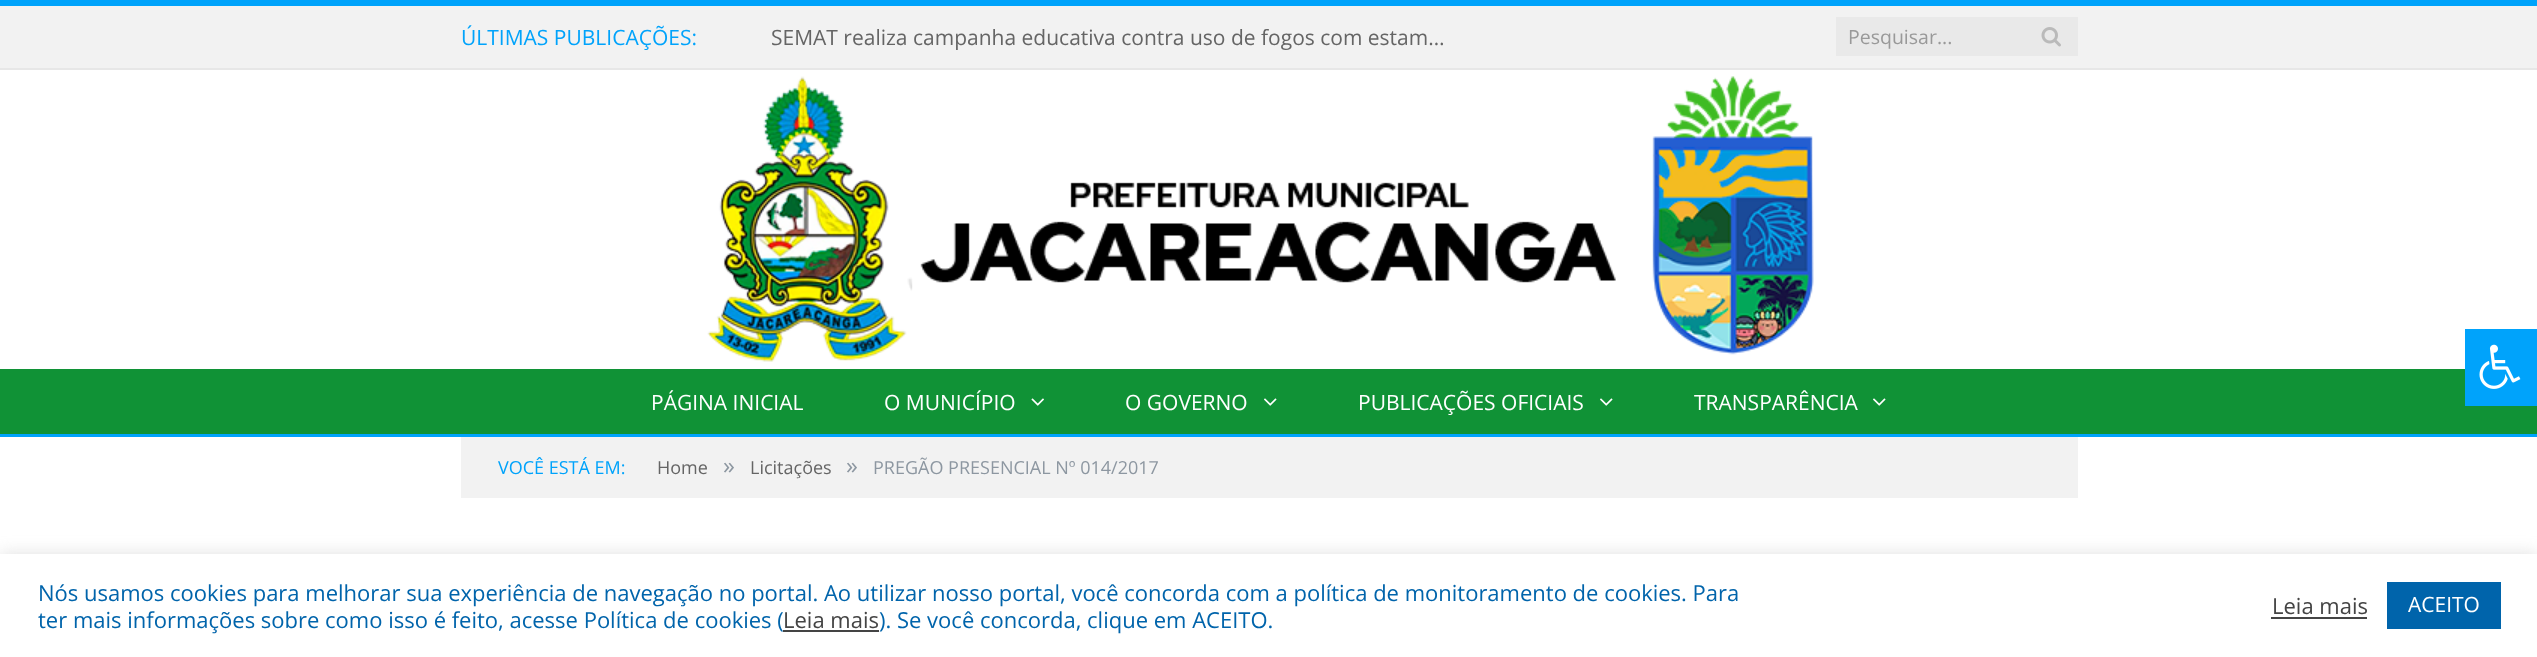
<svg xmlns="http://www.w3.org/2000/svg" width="2537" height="657">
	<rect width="100%" height="100%" fill="#FFFFFF" />
	<rect x="0" y="6" width="2537" height="62" fill="#F2F2F2" />
	<rect x="0" y="0" width="2537" height="6" fill="#00A3FB" />
	<rect x="0" y="68" width="2537" height="2" fill="#E7E7E7" />
	<text x="461" y="45" font-family="Open Sans" font-size="21" fill="#00A3FB">ÚLTIMAS PUBLICAÇÕES:</text>
	<text x="771" y="45" font-family="Open Sans" font-size="21" fill="#656565">SEMAT realiza campanha educativa contra uso de fogos com estam…</text>
	<rect x="1836" y="17" width="242" height="39" fill="#E9E9E9" />
	<text x="1848" y="44" font-family="Open Sans" font-size="19.5" fill="#999999">Pesquisar...</text>
	<image x="2041" y="27" width="20" height="20" href="assets/img1.png" />
	<image x="707" y="76" width="1107" height="286" href="assets/img2.png" />
	<rect x="0" y="369" width="2537" height="65" fill="#109236" />
	<rect x="0" y="434" width="2537" height="3" fill="#00A3FB" />
	<g font-family="Open Sans" font-size="21" fill="#FFFFFF">
		<text x="651" y="410">PÁGINA INICIAL</text>
		<text x="884" y="410">O MUNICÍPIO</text>
	</g>
	<image x="1031" y="398" width="13" height="8" href="assets/img3.png" />
	<text x="1125" y="410" font-family="Open Sans" font-size="21" fill="#FFFFFF">O GOVERNO</text>
	<image x="1264" y="398" width="13" height="8" href="assets/img4.png" />
	<text x="1358" y="410" font-family="Open Sans" font-size="21" fill="#FFFFFF">PUBLICAÇÕES OFICIAIS</text>
	<image x="1600" y="398" width="13" height="8" href="assets/img4.png" />
	<text x="1694" y="410" font-family="Open Sans" font-size="21" fill="#FFFFFF">TRANSPARÊNCIA</text>
	<image x="1873" y="398" width="13" height="8" href="assets/img4.png" />
	<rect x="461" y="437" width="1617" height="61" fill="#F2F2F2" />
	<text x="498" y="474" font-family="Open Sans" font-size="18" fill="#00A3FB">VOCÊ ESTÁ EM:</text>
	<text x="657" y="474" font-family="Open Sans" font-size="18" fill="#656565">Home</text>
	<text x="723" y="474" font-family="Open Sans" font-size="24" fill="#8D97A1">»</text>
	<text x="750" y="474" font-family="Open Sans" font-size="18" fill="#656565">Licitações</text>
	<text x="846" y="474" font-family="Open Sans" font-size="24" fill="#8D97A1">»</text>
	<text x="873" y="474" font-family="Open Sans" font-size="18" fill="#8D97A1">PREGÃO PRESENCIAL Nº 014/2017</text>
	<rect x="2465" y="329" width="72" height="77" fill="#00A3FB" />
	<image x="2479" y="344" width="42" height="45" href="assets/img5.png" />
	<rect x="0" y="552" width="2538" height="104" fill="#ACABAB" fill-opacity="0.3" filter="blur(7.5px)" />
	<rect x="0" y="554" width="2537" height="103" fill="#FFFFFF" />
	<g font-family="Open Sans" font-size="22" fill="#0064AB">
		<text x="38" y="601">Nós usamos cookies para melhorar sua experiência de navegação no portal. Ao utilizar nosso portal, você concorda com a política de monitoramento de cookies. Para</text>
		<text x="38" y="628">ter mais informações sobre como isso é feito, acesse Política de cookies (</text>
	</g>
	<text x="783" y="628" font-family="Open Sans" font-size="22" fill="#444444">Leia mais</text>
	<rect x="783" y="630" width="96" height="2" fill="#444444" />
	<text x="879" y="628" font-family="Open Sans" font-size="22" fill="#0064AB">). Se você concorda, clique em ACEITO.</text>
	<text x="2272" y="614" font-family="Open Sans" font-size="22" fill="#444444">Leia mais</text>
	<rect x="2271" y="617" width="96" height="2" fill="#444444" />
	<rect x="2387" y="582" width="114" height="47" fill="#0064AB" />
	<text x="2408" y="612" font-family="Open Sans" font-size="21" fill="#FFFFFF">ACEITO</text>
</svg>
